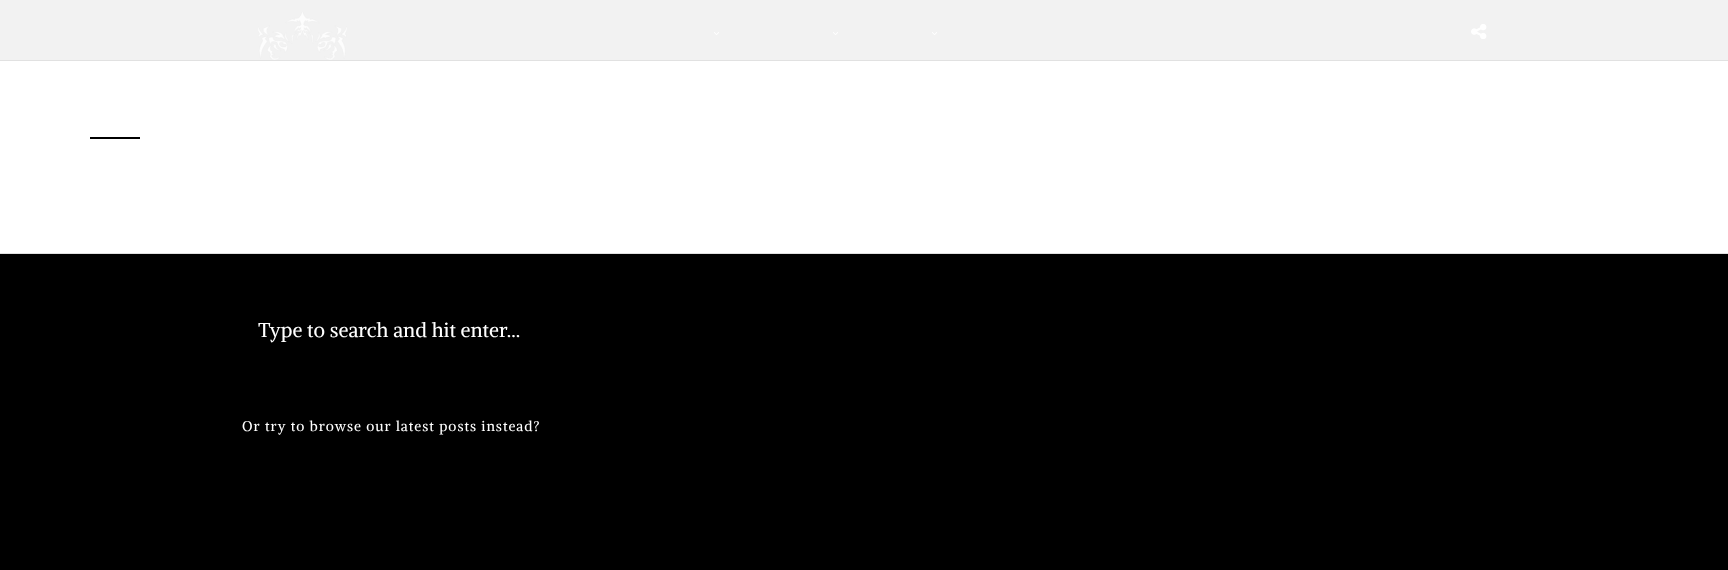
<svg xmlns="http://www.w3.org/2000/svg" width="1728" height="570">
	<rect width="100%" height="100%" fill="#000000" />
	<rect x="0" y="0" width="1728" height="60" fill="#F2F2F2" />
	<rect x="0" y="60" width="1728" height="1" fill="#E1E1E1" />
	<image x="258" y="12" width="89" height="48" href="assets/img1.png" />
	<image x="714" y="32" width="5" height="3" href="assets/img2.png" />
	<image x="833" y="32" width="5" height="3" href="assets/img2.png" />
	<image x="932" y="32" width="5" height="3" href="assets/img2.png" />
	<image x="1471" y="24" width="16" height="15" href="assets/img3.png" />
	<rect x="0" y="61" width="1728" height="192" fill="#FFFFFF" />
	<rect x="0" y="253" width="1728" height="1" fill="#E1E1E1" />
	<rect x="90" y="137" width="50" height="2" fill="#000000" />
	<text x="258" y="337" font-family="Alike" font-size="20" fill="#FFFFFF">Type to search and hit enter...</text>
	<text x="242" y="431" font-family="Alike" font-size="14" letter-spacing="1" fill="#FFFFFF">Or try to browse our latest posts instead?</text>
</svg>
